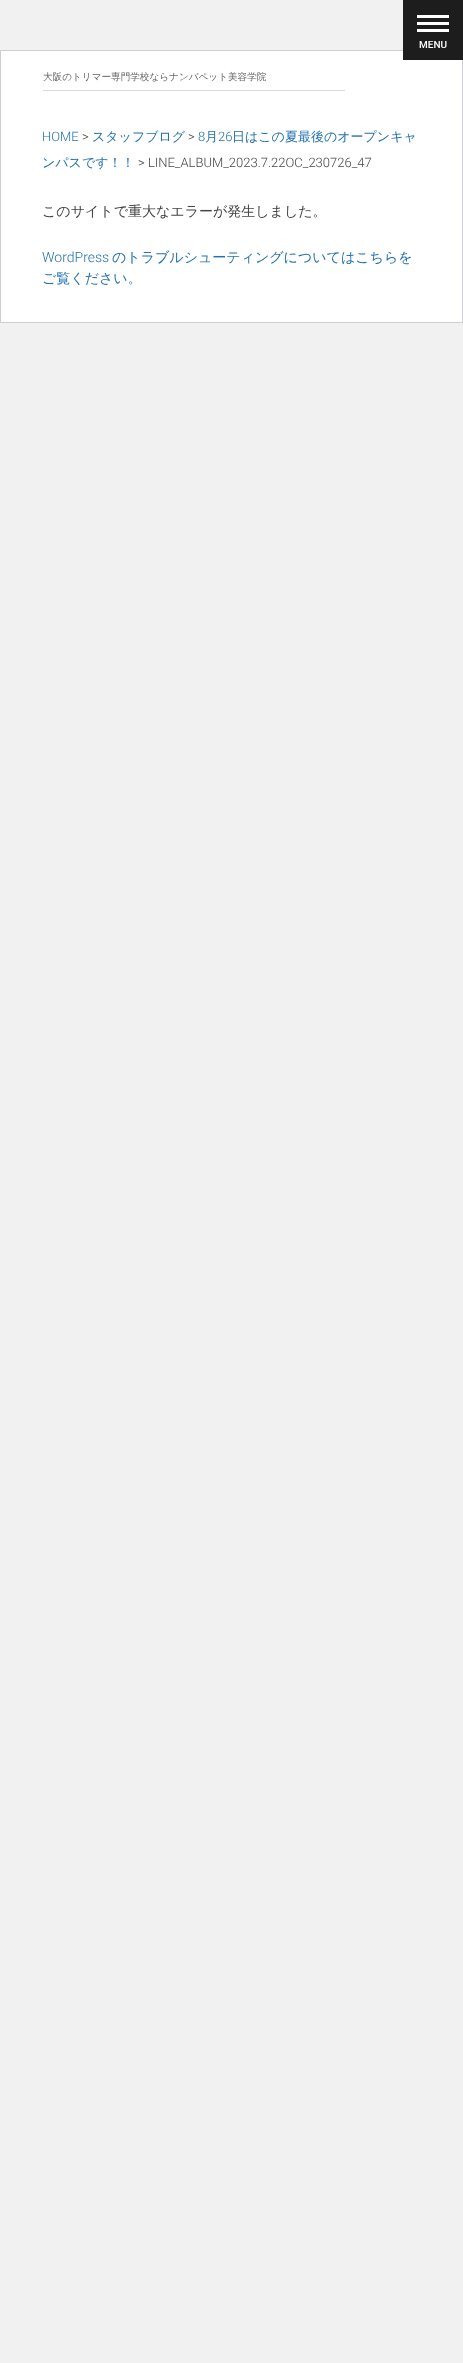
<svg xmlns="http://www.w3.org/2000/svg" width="463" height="2363">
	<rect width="100%" height="100%" fill="#F1F1F1" />
	<rect x="0.5" y="50.5" width="462" height="272" fill="#FFFFFF" stroke="#CCD0D4" />
	<rect x="403" y="0" width="60" height="60" fill="#1D1D1D" />
	<rect x="417" y="15" width="32" height="3" fill="#FFFFFF" />
	<rect x="417" y="22" width="32" height="3" fill="#FFFFFF" />
	<rect x="417" y="29" width="32" height="3" fill="#FFFFFF" />
	<text x="419" y="48" font-family="Roboto" font-size="10" font-weight="500" fill="#FFFFFF">MENU</text>
	<rect x="43" y="90" width="302" height="1" fill="#DADADA" />
	<text x="43" y="80" font-family="WenQuanYi Zen Hei" font-size="9.6" font-weight="500" fill="#666666">大阪のトリマー専門学校ならナンバペット美容学院</text>
	<text x="42" y="141" font-family="Roboto" font-size="13" font-weight="300" fill="#2271B1">HOME</text>
	<text x="82" y="141" font-family="Roboto" font-size="13" font-weight="300" fill="#444444">&gt;</text>
	<text x="92" y="141" font-family="WenQuanYi Zen Hei" font-size="13" font-weight="500" fill="#2271B1">スタッフブログ</text>
	<text x="188" y="141" font-family="Roboto" font-size="13" font-weight="300" fill="#444444">&gt;</text>
	<text x="198" y="141" font-family="Roboto" font-size="13" font-weight="300" fill="#2271B1">8</text>
	<text x="205" y="141" font-family="WenQuanYi Zen Hei" font-size="13" font-weight="500" fill="#2271B1">月</text>
	<text x="218" y="141" font-family="Roboto" font-size="13" font-weight="300" fill="#2271B1">26</text>
	<g font-family="WenQuanYi Zen Hei" font-size="13" font-weight="500" fill="#2271B1">
		<text x="232" y="141">日はこの夏最後のオープンキャ</text>
		<text x="42" y="167">ンパスです！！</text>
	</g>
	<text x="138" y="167" font-family="Roboto" font-size="13" font-weight="300" fill="#444444">&gt; LINE_ALBUM_2023.7.22OC_230726_47</text>
	<text x="42" y="216" font-family="WenQuanYi Zen Hei" font-size="14" font-weight="500" fill="#444444">このサイトで重大なエラーが発生しました。</text>
	<text x="42" y="262" font-family="Roboto" font-size="14" font-weight="300" fill="#2271B1">WordPress</text>
	<g font-family="WenQuanYi Zen Hei" font-size="14" font-weight="500" fill="#2271B1">
		<text x="112" y="262">のトラブルシューティングについてはこちらを</text>
		<text x="42" y="283">ご覧ください。</text>
	</g>
</svg>
